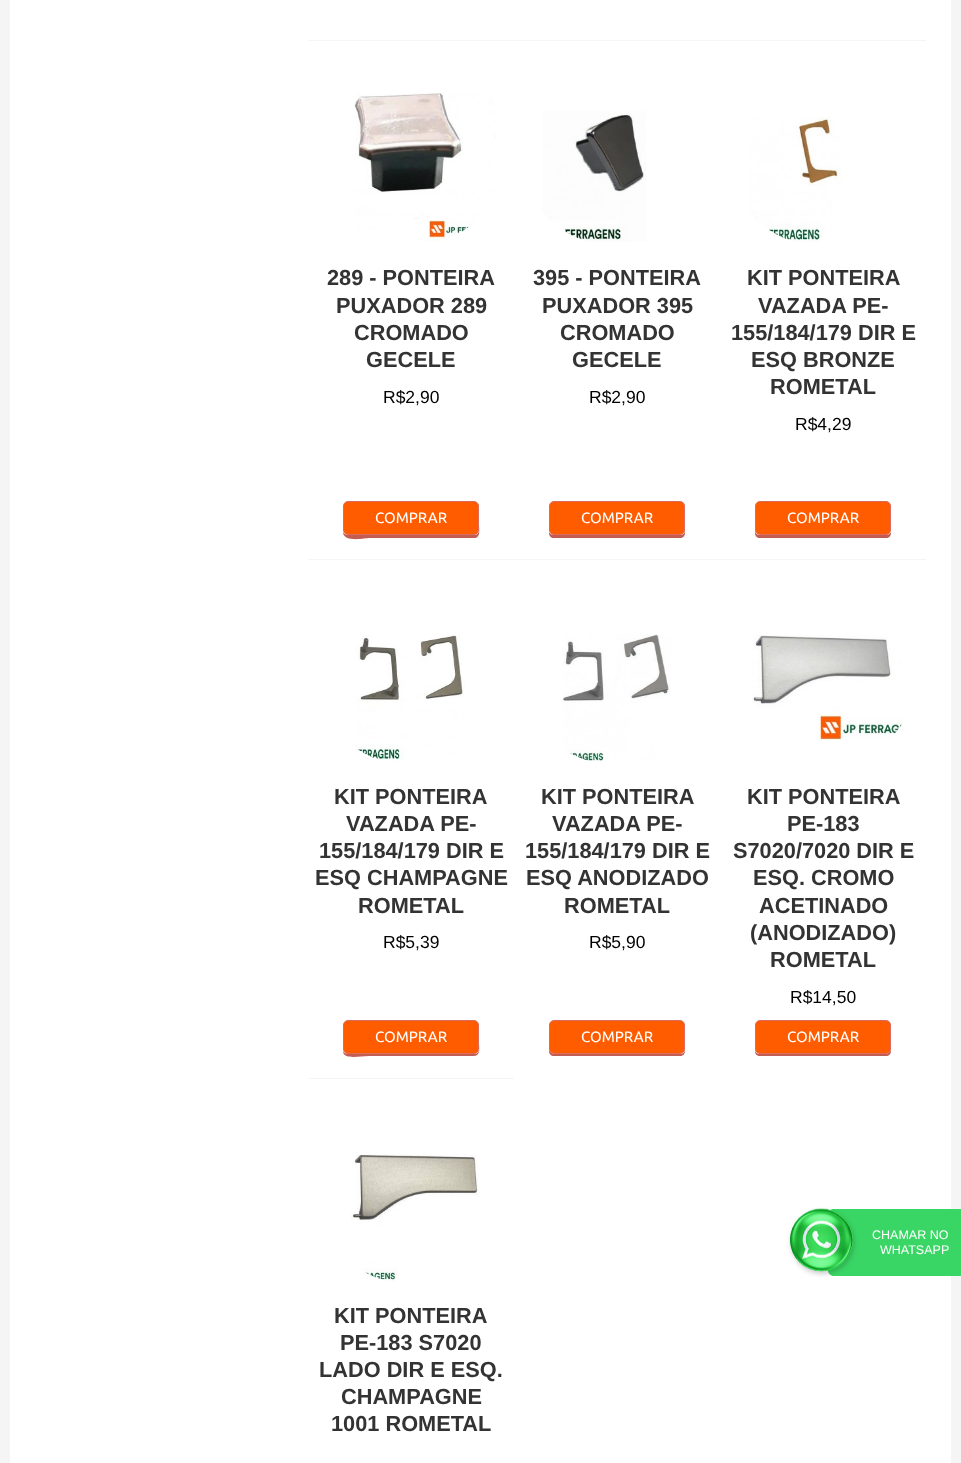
<svg xmlns="http://www.w3.org/2000/svg" width="961" height="1463">
	<rect width="100%" height="100%" fill="#F5F5F5" />
	<rect x="10" y="0" width="941" height="1463" fill="#FFFFFF" />
	<rect x="308" y="40" width="618" height="1" fill="#F5F5F5" />
	<image x="354" y="93" width="142" height="149" href="assets/img1.png" />
	<g font-family="Liberation Sans" font-size="21.75" font-weight="700" fill="#333333">
		<text x="327" y="285">289 - PONTEIRA</text>
		<text x="336" y="313">PUXADOR 289</text>
		<text x="354" y="340">CROMADO</text>
		<text x="366" y="367">GECELE</text>
	</g>
	<text x="383" y="403" font-family="Liberation Sans" font-size="17.5" fill="#000000">R$2,90</text>
	<path d="M343 532C343 543 366 538 369 538H474C481 538 479 529 479 525V507V530C479 533 477 535 474 535H348C346 535 344 534 343 532Z" fill="#C45D51" />
	<rect x="343.5" y="501.5" width="135" height="33" rx="4.5" fill="#FF5C00" stroke="#DC6B5E" />
	<text x="375" y="523" font-family="Ubuntu" font-size="15" fill="#FFFFFF">COMPRAR</text>
	<image x="542" y="111" width="104" height="131" href="assets/img2.png" />
	<g font-family="Liberation Sans" font-size="21.75" font-weight="700" fill="#333333">
		<text x="533" y="285">395 - PONTEIRA</text>
		<text x="542" y="313">PUXADOR 395</text>
		<text x="560" y="340">CROMADO</text>
		<text x="572" y="367">GECELE</text>
	</g>
	<text x="589" y="403" font-family="Liberation Sans" font-size="17.5" fill="#000000">R$2,90</text>
	<path d="M549 532V533C549 536 551 538 554 538H680C683 538 685 536 685 533V530C685 533 683 535 680 535H554C552 535 550 534 549 532Z" fill="#C45D51" />
	<rect x="549.5" y="501.5" width="135" height="33" rx="4.5" fill="#FF5C00" stroke="#DC6B5E" />
	<text x="581" y="523" font-family="Ubuntu" font-size="15" fill="#FFFFFF">COMPRAR</text>
	<image x="748" y="116" width="94" height="126" href="assets/img3.png" />
	<g font-family="Liberation Sans" font-size="21.75" font-weight="700" fill="#333333">
		<text x="747" y="285">KIT PONTEIRA</text>
		<text x="758" y="313">VAZADA PE-</text>
		<text x="731" y="340">155/184/179 DIR E</text>
		<text x="751" y="367">ESQ BRONZE</text>
		<text x="770" y="394">ROMETAL</text>
	</g>
	<text x="795" y="430" font-family="Liberation Sans" font-size="17.5" fill="#000000">R$4,29</text>
	<path d="M755 530V533C755 536 757 538 760 538H886C889 538 891 536 891 533V532C890 534 888 535 886 535H760C757 535 755 533 755 530Z" fill="#C45D51" />
	<rect x="755.5" y="501.5" width="135" height="33" rx="4.5" fill="#FF5C00" stroke="#DC6B5E" />
	<text x="787" y="523" font-family="Ubuntu" font-size="15" fill="#FFFFFF">COMPRAR</text>
	<rect x="308" y="559" width="618" height="1" fill="#F5F5F5" />
	<image x="355" y="634" width="110" height="127" href="assets/img4.png" />
	<g font-family="Liberation Sans" font-size="21.75" font-weight="700" fill="#333333">
		<text x="334" y="804">KIT PONTEIRA</text>
		<text x="346" y="831">VAZADA PE-</text>
		<text x="319" y="858">155/184/179 DIR E</text>
		<text x="315" y="885">ESQ CHAMPAGNE</text>
		<text x="358" y="913">ROMETAL</text>
	</g>
	<text x="383" y="948" font-family="Liberation Sans" font-size="17.5" fill="#000000">R$5,39</text>
	<path d="M343 1051C343 1060 359 1056 369 1056H474C481 1056 479 1047 479 1043V1026V1049C479 1052 477 1054 474 1054H348C346 1054 344 1053 343 1051Z" fill="#C45D51" />
	<rect x="343.5" y="1020.5" width="135" height="33" rx="4.5" fill="#FF5C00" stroke="#DC6B5E" />
	<text x="375" y="1042" font-family="Ubuntu" font-size="15" fill="#FFFFFF">COMPRAR</text>
	<image x="562" y="634" width="109" height="127" href="assets/img5.png" />
	<g font-family="Liberation Sans" font-size="21.75" font-weight="700" fill="#333333">
		<text x="541" y="804">KIT PONTEIRA</text>
		<text x="552" y="831">VAZADA PE-</text>
		<text x="525" y="858">155/184/179 DIR E</text>
		<text x="526" y="885">ESQ ANODIZADO</text>
		<text x="564" y="913">ROMETAL</text>
	</g>
	<text x="589" y="948" font-family="Liberation Sans" font-size="17.5" fill="#000000">R$5,90</text>
	<path d="M549 1050V1051C549 1054 551 1056 554 1056H680C683 1056 685 1054 685 1051V1049C685 1052 683 1054 680 1054H554C552 1054 550 1052 549 1050Z" fill="#C45D51" />
	<rect x="549.5" y="1020.5" width="135" height="33" rx="4.5" fill="#FF5C00" stroke="#DC6B5E" />
	<text x="581" y="1042" font-family="Ubuntu" font-size="15" fill="#FFFFFF">COMPRAR</text>
	<image x="752" y="635" width="151" height="105" href="assets/img6.png" />
	<g font-family="Liberation Sans" font-size="21.75" font-weight="700" fill="#333333">
		<text x="747" y="804">KIT PONTEIRA</text>
		<text x="787" y="831">PE-183</text>
		<text x="733" y="858">S7020/7020 DIR E</text>
		<text x="753" y="885">ESQ. CROMO</text>
		<text x="759" y="913">ACETINADO</text>
		<text x="750" y="940">(ANODIZADO)</text>
		<text x="770" y="967">ROMETAL</text>
	</g>
	<text x="790" y="1003" font-family="Liberation Sans" font-size="17.5" fill="#000000">R$14,50</text>
	<path d="M755 1049V1051C755 1054 757 1056 760 1056H886C889 1056 891 1054 891 1051V1050C890 1052 888 1054 886 1054H760C757 1054 755 1052 755 1049Z" fill="#C45D51" />
	<rect x="755.5" y="1020.5" width="135" height="33" rx="4.5" fill="#FF5C00" stroke="#DC6B5E" />
	<text x="787" y="1042" font-family="Ubuntu" font-size="15" fill="#FFFFFF">COMPRAR</text>
	<rect x="308" y="1078" width="206" height="1" fill="#F5F5F5" />
	<image x="351" y="1154" width="128" height="128" href="assets/img7.png" />
	<g font-family="Liberation Sans" font-size="21.75" font-weight="700" fill="#333333">
		<text x="334" y="1323">KIT PONTEIRA</text>
		<text x="340" y="1350">PE-183 S7020</text>
		<text x="319" y="1377">LADO DIR E ESQ.</text>
		<text x="341" y="1404">CHAMPAGNE</text>
		<text x="331" y="1431">1001 ROMETAL</text>
	</g>
	<path d="M834 1209H961V1276H834C830.5 1276 828 1273.5 828 1270V1215C828 1211.5 830.5 1209 834 1209Z" fill="#3AD665" />
	<rect x="791" y="1211" width="63" height="63" rx="31.5" fill="#000000" fill-opacity="0.2" filter="blur(2.5px)" />
	<rect x="790" y="1209" width="63" height="62" rx="31" fill="#48D965" />
	<image x="790" y="1208" width="63" height="64" href="assets/img8.png" />
	<g font-family="Liberation Sans" font-size="12.5" fill="#FFFFFF">
		<text x="872" y="1239">CHAMAR NO</text>
		<text x="880" y="1254">WHATSAPP</text>
	</g>
</svg>
